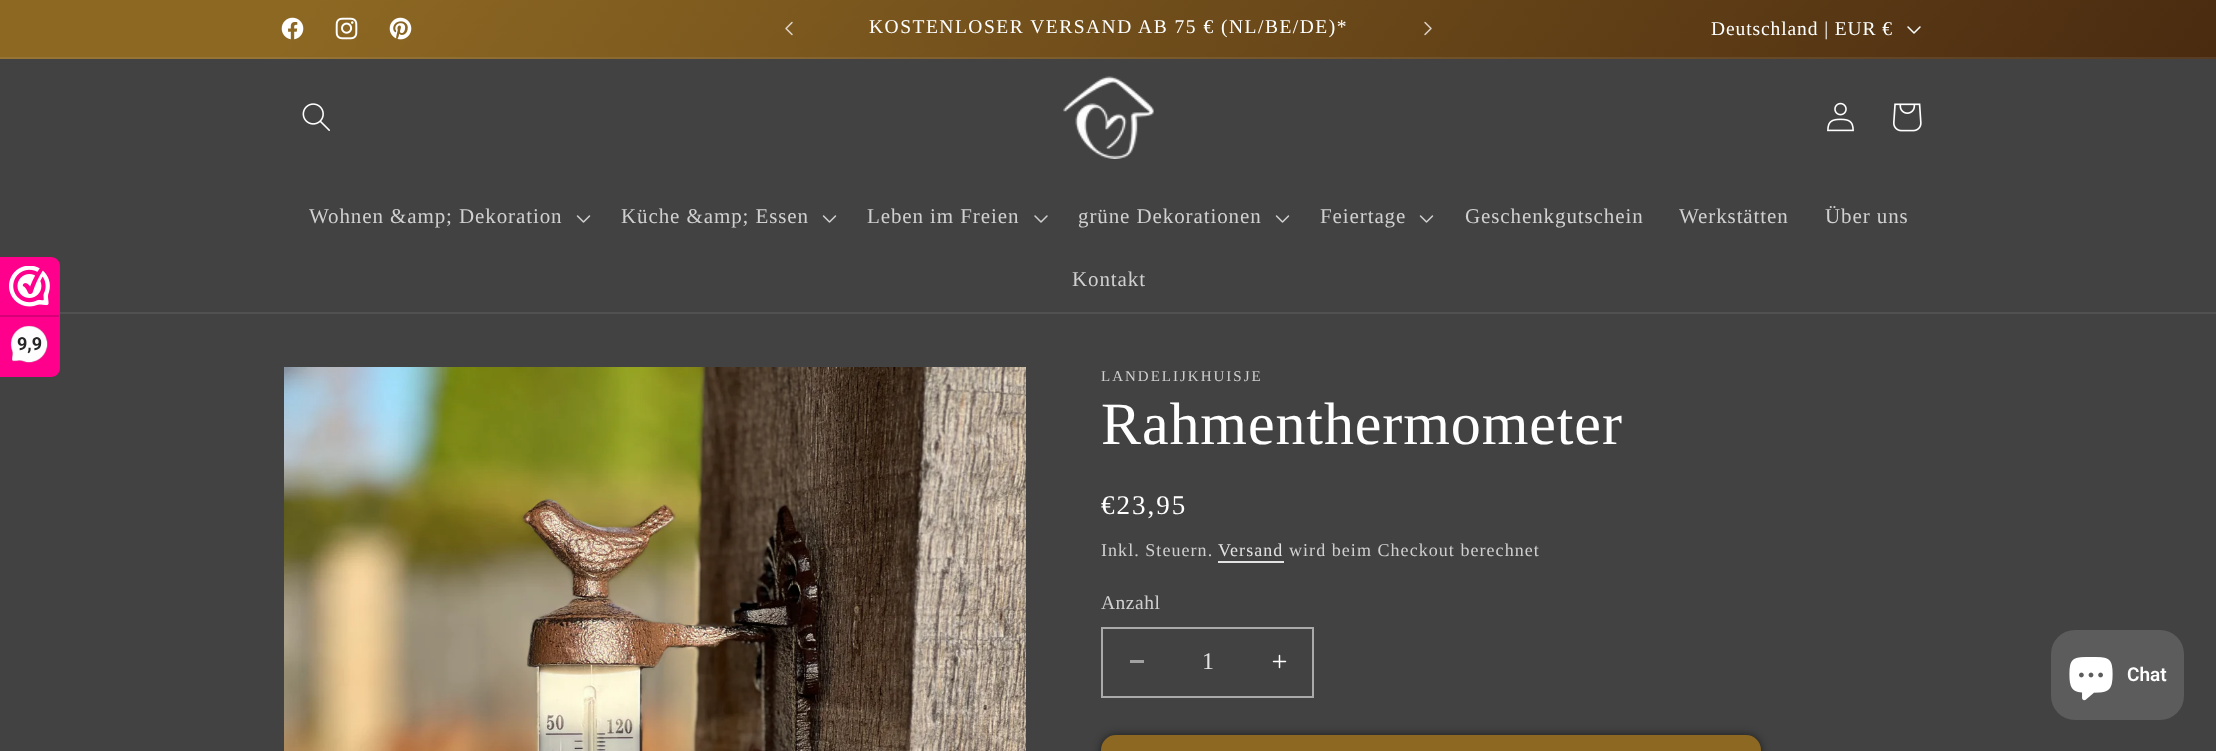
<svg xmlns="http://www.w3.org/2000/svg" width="2216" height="751">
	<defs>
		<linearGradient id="g1" gradientUnits="userSpaceOnUse" x1="221" y1="-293" x2="1996" y2="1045"><stop offset="0.11" stop-color="#8D6823" /><stop offset="0.81" stop-color="#4A2B10" /></linearGradient>
		<linearGradient id="g2" gradientUnits="userSpaceOnUse" x1="221" y1="-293" x2="1996" y2="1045"><stop offset="0.11" stop-color="#967435" /><stop offset="0.81" stop-color="#583C23" /></linearGradient>
	</defs>
	<rect width="100%" height="100%" fill="#424242" />
	<rect x="0" y="0" width="2216" height="57" fill="url(#g1)" />
	<rect x="0" y="57" width="2216" height="2" fill="url(#g2)" />
	<image x="281" y="17" width="23" height="23" href="assets/img1.png" />
	<image x="335" y="17" width="23" height="23" href="assets/img2.png" />
	<image x="389" y="17" width="23" height="23" href="assets/img3.png" />
	<image x="785" y="21" width="8" height="15" href="assets/img4.png" />
	<text x="869" y="33" font-family="Liberation Serif" font-size="19.5" letter-spacing="1.5" fill="#FFFFFF">KOSTENLOSER VERSAND AB 75 € (NL/BE/DE)*</text>
	<image x="1424" y="21" width="8" height="15" href="assets/img5.png" />
	<text x="1711" y="35" font-family="Liberation Serif" font-size="19.5" letter-spacing="0.9" fill="#FFFFFF">Deutschland | EUR €</text>
	<image x="1907" y="26" width="14" height="8" href="assets/img6.png" />
	<rect x="60" y="312" width="2156" height="2" fill="#515151" />
	<image x="302" y="103" width="28" height="28" href="assets/img7.png" />
	<image x="1063" y="76" width="91" height="83" href="assets/img8.png" />
	<image x="1827" y="102" width="27" height="30" href="assets/img9.png" />
	<image x="1893" y="103" width="29" height="29" href="assets/img10.png" />
	<text x="309" y="223" font-family="Liberation Serif" font-size="21" letter-spacing="0.9" fill="#D0D0D0">Wohnen &amp;amp; Dekoration</text>
	<image x="576" y="215" width="15" height="8" href="assets/img11.png" />
	<text x="621" y="223" font-family="Liberation Serif" font-size="21" letter-spacing="0.9" fill="#D0D0D0">Küche &amp;amp; Essen</text>
	<image x="822" y="215" width="15" height="8" href="assets/img11.png" />
	<text x="867" y="223" font-family="Liberation Serif" font-size="21" letter-spacing="0.9" fill="#D0D0D0">Leben im Freien</text>
	<image x="1034" y="215" width="14" height="8" href="assets/img12.png" />
	<text x="1078" y="223" font-family="Liberation Serif" font-size="21" letter-spacing="0.9" fill="#D0D0D0">grüne Dekorationen</text>
	<image x="1275" y="215" width="15" height="8" href="assets/img11.png" />
	<text x="1320" y="223" font-family="Liberation Serif" font-size="21" letter-spacing="0.9" fill="#D0D0D0">Feiertage</text>
	<image x="1419" y="215" width="15" height="8" href="assets/img11.png" />
	<g font-family="Liberation Serif" font-size="21" letter-spacing="0.9" fill="#D0D0D0">
		<text x="1465" y="223">Geschenkgutschein</text>
		<text x="1679" y="223">Werkstätten</text>
		<text x="1825" y="223">Über uns</text>
		<text x="1072" y="286">Kontakt</text>
	</g>
	<path d="M0 257H51C56 257 60 261 60 266V368C60 373 56 377 51 377H0Z" fill="#FE008C" />
	<image x="9" y="266" width="41" height="41" href="assets/img13.png" />
	<rect x="0" y="315" width="59" height="2" fill="#D80077" />
	<image x="10" y="325" width="38" height="38" href="assets/img14.png" />
	<text x="17" y="350" font-family="Roboto" font-size="18" font-weight="700" fill="#272626">9,9</text>
	<image x="284" y="367" width="742" height="384" href="assets/img15.png" />
	<text x="1101" y="381" font-family="Liberation Serif" font-size="15" letter-spacing="2" fill="#D0D0D0">LANDELIJKHUISJE</text>
	<text x="1101" y="444" font-family="Liberation Serif" font-size="60" letter-spacing="0.9" fill="#FFFFFF">Rahmenthermometer</text>
	<text x="1101" y="514" font-family="Liberation Serif" font-size="27" letter-spacing="2" fill="#FFFFFF">€23,95</text>
	<text x="1101" y="556" font-family="Liberation Serif" font-size="18" letter-spacing="1.05" fill="#D0D0D0">Inkl. Steuern.</text>
	<text x="1218" y="556" font-family="Liberation Serif" font-size="18" letter-spacing="1.05" fill="#E3E3E3">Versand</text>
	<rect x="1218" y="561" width="66" height="2" fill="#E3E3E3" />
	<text x="1289" y="556" font-family="Liberation Serif" font-size="18" letter-spacing="1.05" fill="#D0D0D0">wird beim Checkout berechnet</text>
	<text x="1101" y="609" font-family="Liberation Serif" font-size="19.5" letter-spacing="0.5" fill="#D0D0D0">Anzahl</text>
	<rect x="1130" y="660" width="14" height="3" fill="#A1A1A1" />
	<image x="1272" y="654" width="15" height="15" href="assets/img16.png" />
	<rect x="1102" y="628" width="211" height="69" fill="none" stroke="#AAAAAA" stroke-width="2" />
	<text x="1202" y="669" font-family="Liberation Serif" font-size="24" fill="#E3E3E3">1</text>
	<rect x="1101" y="735" width="660" height="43" rx="15" fill="#000000" fill-opacity="0.55" filter="blur(4px)" />
	<rect x="1101" y="735" width="660" height="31" rx="15" fill="#8D6823" />
	<rect x="2051" y="630" width="133" height="90" rx="24" fill="#5C5C5C" />
	<image x="2069" y="657" width="44" height="44" href="assets/img17.png" />
	<text x="2127" y="681" font-family="Roboto" font-size="19" font-weight="600" fill="#FFFFFF">Chat</text>
</svg>
